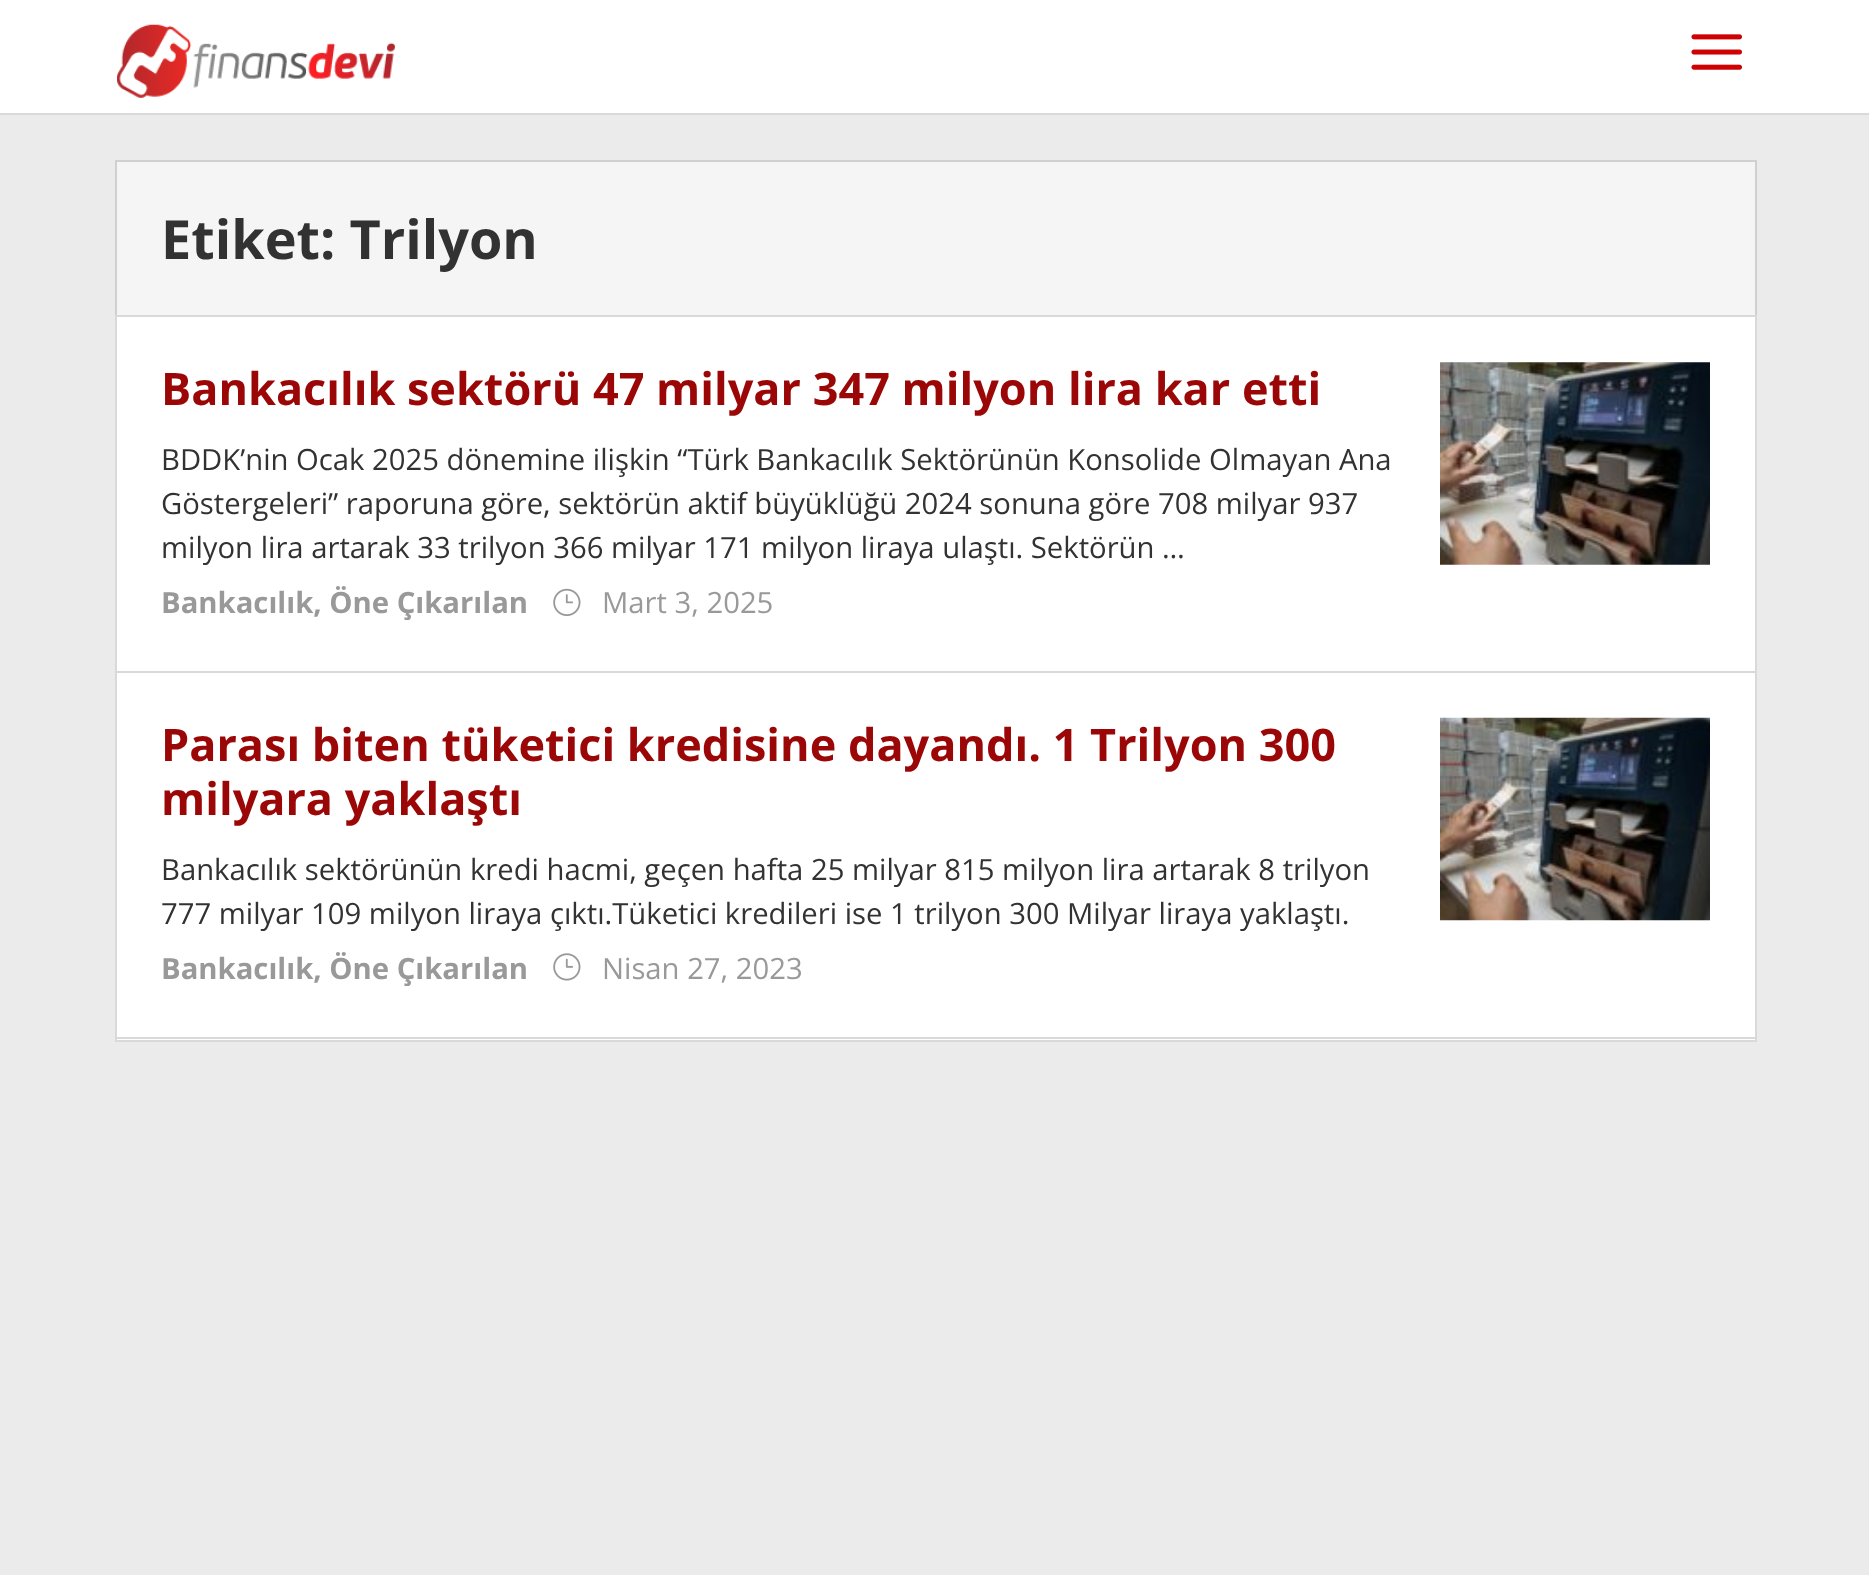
<svg xmlns="http://www.w3.org/2000/svg" width="1869" height="1575">
	<rect width="100%" height="100%" fill="#EBEBEB" />
	<rect x="0" y="0" width="1869" height="113" fill="#FFFFFF" />
	<rect x="0" y="113" width="1869" height="2" fill="#D9D9D9" />
	<image x="116" y="24" width="279" height="74" href="assets/img1.png" />
	<image x="1691" y="34" width="51" height="36" href="assets/img2.png" />
	<rect x="116" y="161" width="1640" height="155" fill="#F5F5F5" stroke="#D0D0D0" stroke-width="2" />
	<text x="161" y="259" font-family="Open Sans" font-size="54" font-weight="700" fill="#323233">Etiket: Tri̇lyon</text>
	<rect x="116" y="316" width="1640" height="725" fill="#FFFFFF" stroke="#D9D9D9" stroke-width="2" />
	<rect x="117" y="671" width="1638" height="2" fill="#D9D9D9" />
	<text x="161" y="405" font-family="Open Sans" font-size="45" font-weight="700" fill="#9B0606">Bankacılık sektörü 47 milyar 347 milyon lira kar etti</text>
	<g font-family="Open Sans" font-size="29.25" fill="#323233">
		<text x="161" y="470">BDDK’nin Ocak 2025 dönemine ilişkin “Türk Bankacılık Sektörünün Konsolide Olmayan Ana</text>
		<text x="161" y="514">Göstergeleri” raporuna göre, sektörün aktif büyüklüğü 2024 sonuna göre 708 milyar 937</text>
		<text x="161" y="558">milyon lira artarak 33 trilyon 366 milyar 171 milyon liraya ulaştı. Sektörün …</text>
	</g>
	<text x="161" y="613" font-family="Open Sans" font-size="29.25" font-weight="700" fill="#999999">Bankacılık, Öne Çıkarılan</text>
	<image x="553" y="588" width="28" height="28" href="assets/img3.png" />
	<text x="602" y="613" font-family="Open Sans" font-size="29.25" fill="#999999">Mart 3, 2025</text>
	<image x="1440" y="362" width="270" height="203" href="assets/img4.png" />
	<rect x="117" y="1037" width="1638" height="2" fill="#D9D9D9" />
	<g font-family="Open Sans" font-size="45" font-weight="700" fill="#9B0606">
		<text x="161" y="761">Parası biten tüketici kredisine dayandı. 1 Trilyon 300</text>
		<text x="161" y="815">milyara yaklaştı</text>
	</g>
	<g font-family="Open Sans" font-size="29.25" fill="#323233">
		<text x="161" y="880">Bankacılık sektörünün kredi hacmi, geçen hafta 25 milyar 815 milyon lira artarak 8 trilyon</text>
		<text x="161" y="924">777 milyar 109 milyon liraya çıktı.Tüketici kredileri ise 1 trilyon 300 Milyar liraya yaklaştı.</text>
	</g>
	<text x="161" y="979" font-family="Open Sans" font-size="29.25" font-weight="700" fill="#999999">Bankacılık, Öne Çıkarılan</text>
	<image x="553" y="953" width="28" height="28" href="assets/img5.png" />
	<text x="602" y="979" font-family="Open Sans" font-size="29.25" fill="#999999">Nisan 27, 2023</text>
	<image x="1440" y="717" width="270" height="204" href="assets/img6.png" />
</svg>
